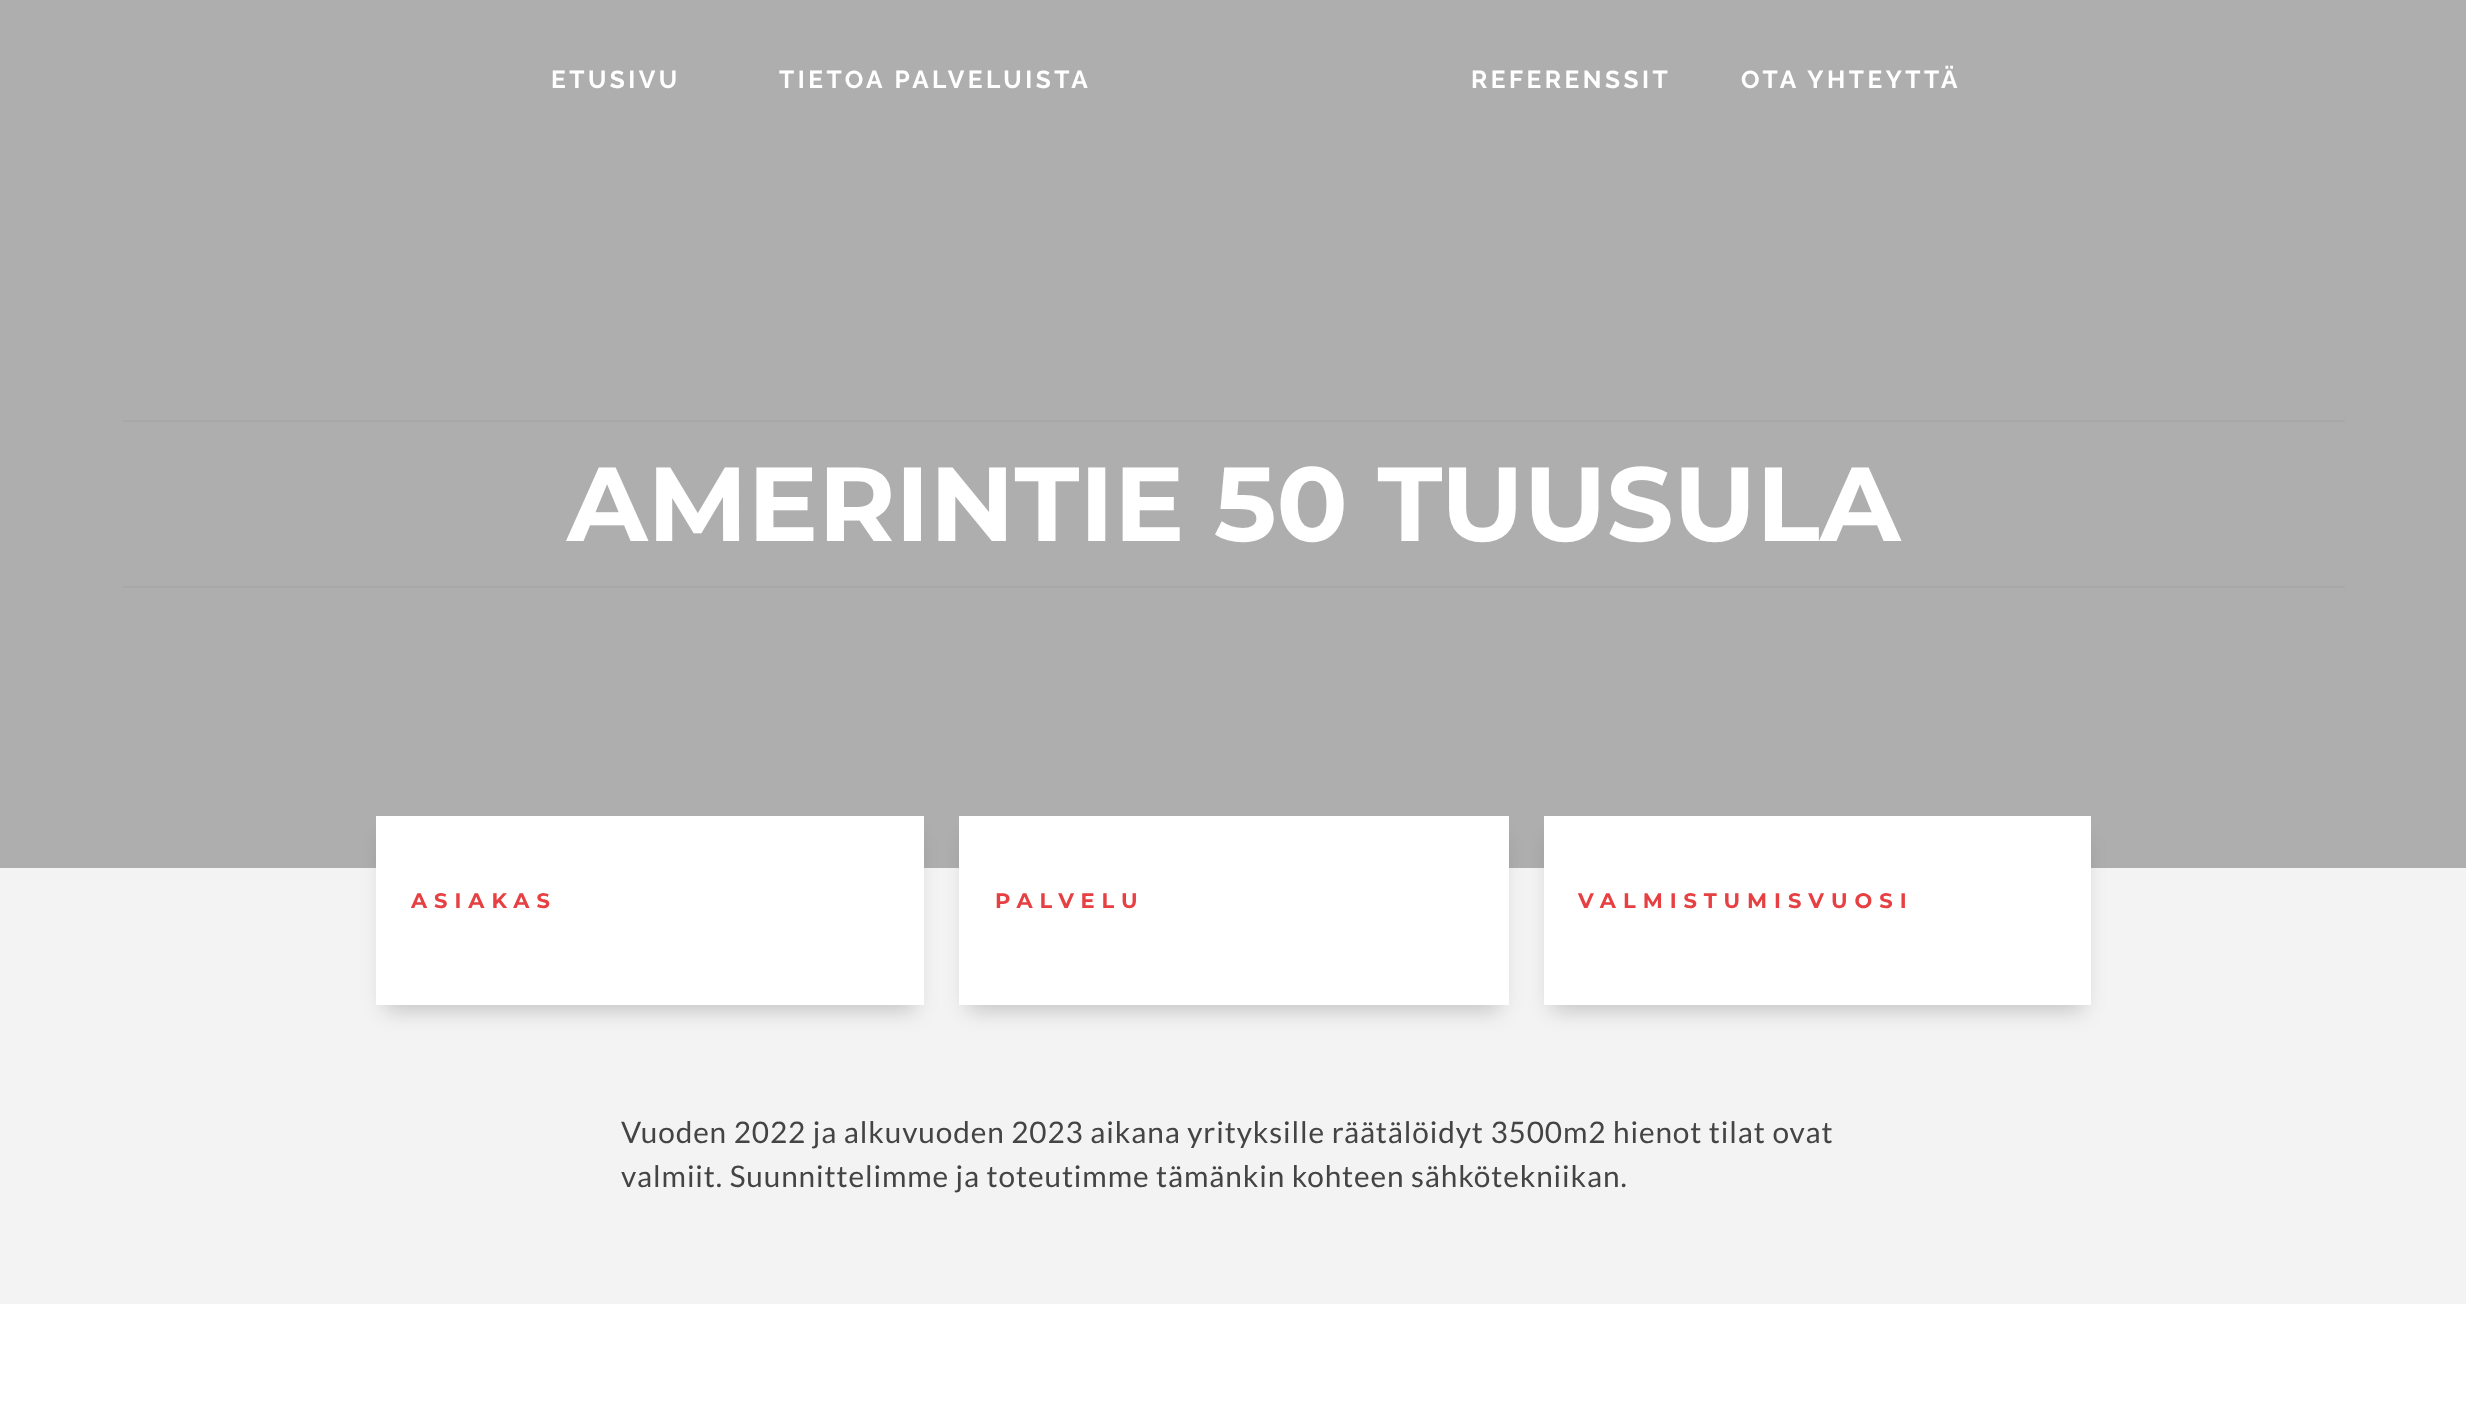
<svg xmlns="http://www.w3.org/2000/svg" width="2466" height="1420">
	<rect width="100%" height="100%" fill="#F3F3F3" />
	<rect x="0" y="0" width="2466" height="868" fill="#AEAEAE" />
	<g font-family="Raleway" font-size="24.5" font-weight="700" letter-spacing="3.5" fill="#FFFFFF">
		<text x="551" y="88">ETUSIVU</text>
		<text x="779" y="88">TIETOA PALVELUISTA</text>
		<text x="1471" y="88">REFERENSSIT</text>
		<text x="1741" y="88">OTA YHTEYTTÄ</text>
	</g>
	<rect x="123" y="420" width="2222" height="2" fill="#A8A8A8" />
	<rect x="123" y="586" width="2222" height="2" fill="#A8A8A8" />
	<text x="567" y="541" font-family="Montserrat" font-size="105" font-weight="700" fill="#FFFFFF">AMERINTIE 50 TUUSULA</text>
	<rect x="385" y="838" width="530" height="172" fill="#000000" fill-opacity="0.2" filter="blur(10.5px)" />
	<rect x="376" y="816" width="548" height="189" fill="#FFFFFF" />
	<text x="411" y="908" font-family="Montserrat" font-size="21" font-weight="700" letter-spacing="7" fill="#E74043">ASIAKAS</text>
	<rect x="968" y="838" width="532" height="172" fill="#000000" fill-opacity="0.2" filter="blur(10.5px)" />
	<rect x="959" y="816" width="550" height="189" fill="#FFFFFF" />
	<text x="995" y="908" font-family="Montserrat" font-size="21" font-weight="700" letter-spacing="7" fill="#E74043">PALVELU</text>
	<rect x="1552" y="838" width="531" height="172" fill="#000000" fill-opacity="0.2" filter="blur(10.5px)" />
	<rect x="1544" y="816" width="547" height="189" fill="#FFFFFF" />
	<text x="1578" y="908" font-family="Montserrat" font-size="21" font-weight="700" letter-spacing="7" fill="#E74043">VALMISTUMISVUOSI</text>
	<g font-family="Lato" font-size="29.75" letter-spacing="0.88" fill="#444444">
		<text x="621" y="1143">Vuoden 2022 ja alkuvuoden 2023 aikana yrityksille räätälöidyt 3500m2 hienot tilat ovat</text>
		<text x="621" y="1187">valmiit. Suunnittelimme ja toteutimme tämänkin kohteen sähkötekniikan.</text>
	</g>
	<rect x="0" y="1304" width="2466" height="116" fill="#FFFFFF" />
</svg>
